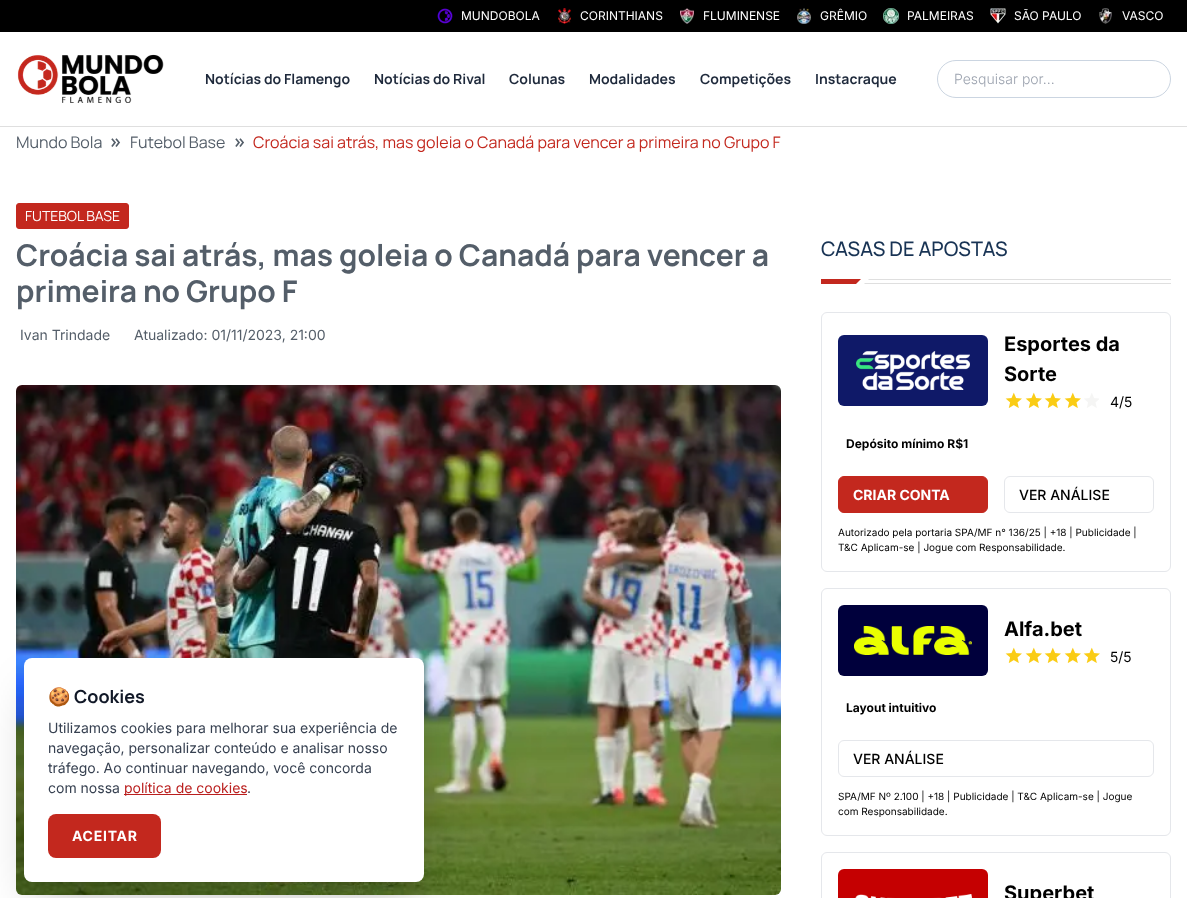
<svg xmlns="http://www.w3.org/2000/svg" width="1187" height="898">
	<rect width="100%" height="100%" fill="#FFFFFF" />
	<rect x="0" y="0" width="1187" height="32" fill="#000000" />
	<image x="437" y="8" width="16" height="16" href="assets/img1.png" />
	<text x="461" y="20" font-family="Inter" font-size="12" fill="#FFFFFF">MUNDOBOLA</text>
	<image x="558" y="8" width="13" height="16" href="assets/img2.png" />
	<text x="580" y="20" font-family="Inter" font-size="12" fill="#FFFFFF">CORINTHIANS</text>
	<image x="680" y="8" width="14" height="16" href="assets/img3.png" />
	<text x="703" y="20" font-family="Inter" font-size="12" fill="#FFFFFF">FLUMINENSE</text>
	<image x="797" y="8" width="14" height="16" href="assets/img4.png" />
	<text x="820" y="20" font-family="Inter" font-size="12" fill="#FFFFFF">GRÊMIO</text>
	<image x="883" y="8" width="16" height="16" href="assets/img5.png" />
	<text x="907" y="20" font-family="Inter" font-size="12" fill="#FFFFFF">PALMEIRAS</text>
	<image x="990" y="8" width="16" height="16" href="assets/img6.png" />
	<text x="1014" y="20" font-family="Inter" font-size="12" fill="#FFFFFF">SÃO PAULO</text>
	<image x="1099" y="8" width="13" height="16" href="assets/img7.png" />
	<text x="1122" y="20" font-family="Inter" font-size="12" fill="#FFFFFF">VASCO</text>
	<rect x="0" y="126" width="1187" height="1" fill="#DFDFDF" />
	<image x="17" y="54" width="147" height="49" href="assets/img8.png" />
	<g font-family="Manrope" font-size="14" font-weight="700" fill="#1E293B">
		<text x="205" y="84">Notícias do Flamengo</text>
		<text x="374" y="84">Notícias do Rival</text>
		<text x="509" y="84">Colunas</text>
		<text x="589" y="84">Modalidades</text>
		<text x="700" y="84">Competições</text>
		<text x="815" y="84">Instacraque</text>
	</g>
	<rect x="937.5" y="60.5" width="233" height="37" rx="18.5" fill="none" stroke="#CBD5E1" />
	<text x="954" y="84" font-family="Inter" font-size="14" font-weight="300" fill="#9CA3AF">Pesquisar por...</text>
	<text x="16" y="148" font-family="Manrope" font-size="16" fill="#545E69">Mundo Bola</text>
	<text x="110" y="148" font-family="Manrope" font-size="20" font-weight="700" fill="#545E69">»</text>
	<text x="130" y="148" font-family="Manrope" font-size="16" fill="#545E69">Futebol Base</text>
	<text x="234" y="148" font-family="Manrope" font-size="20" font-weight="700" fill="#545E69">»</text>
	<text x="253" y="148" font-family="Manrope" font-size="16" fill="#C3281E">Croácia sai atrás, mas goleia o Canadá para vencer a primeira no Grupo F</text>
	<rect x="16.5" y="203.5" width="112" height="25" rx="2.5" fill="#C3281E" stroke="#C3281E" />
	<text x="25" y="221" font-family="Manrope" font-size="14" fill="#FFFFFF">FUTEBOL BASE</text>
	<g font-family="Manrope" font-size="30" font-weight="700" fill="#545E69">
		<text x="16" y="266">Croácia sai atrás, mas goleia o Canadá para vencer a</text>
		<text x="16" y="302">primeira no Grupo F</text>
	</g>
	<g font-family="Inter" font-size="14" fill="#545E69">
		<text x="20" y="340">Ivan Trindade</text>
		<text x="134" y="340">Atualizado: 01/11/2023, 21:00</text>
	</g>
	<image x="16" y="385" width="765" height="510" href="assets/img9.png" />
	<text x="821" y="256" font-family="Manrope" font-size="20" font-weight="500" fill="#183354">CASAS DE APOSTAS</text>
	<rect x="868" y="279" width="303" height="1" fill="#DFDFDF" />
	<rect x="864" y="283" width="307" height="1" fill="#DFDFDF" />
	<path d="M821 279H869L864 284H821Z" fill="#FFFFFF" />
	<path d="M821 279H861L856 284H821Z" fill="#C3281E" />
	<rect x="821.5" y="312.5" width="349" height="259" rx="5.5" fill="none" stroke="#E5E7EB" />
	<rect x="838" y="335" width="150" height="71" rx="6" fill="#0F1968" />
	<image x="856" y="351" width="114" height="39" href="assets/img10.png" />
	<g font-family="Inter" font-size="20" font-weight="700" fill="#000000">
		<text x="1004" y="351">Esportes da</text>
		<text x="1004" y="381">Sorte</text>
	</g>
	<image x="1005" y="392" width="17" height="16" href="assets/img11.png" />
	<image x="1025" y="392" width="17" height="16" href="assets/img11.png" />
	<image x="1044" y="392" width="17" height="16" href="assets/img11.png" />
	<image x="1064" y="392" width="17" height="16" href="assets/img11.png" />
	<image x="1084" y="393" width="15" height="15" href="assets/img12.png" />
	<text x="1110" y="407" font-family="Inter" font-size="14" fill="#000000">4/5</text>
	<text x="846" y="448" font-family="Inter" font-size="12" font-weight="700" fill="#000000">Depósito mínimo R$1</text>
	<rect x="838.5" y="476.5" width="149" height="36" rx="5.5" fill="#C3281E" stroke="#C3281E" />
	<text x="853" y="500" font-family="Inter" font-size="14" font-weight="700" fill="#FFFFFF">CRIAR CONTA</text>
	<rect x="1004.5" y="476.5" width="149" height="36" rx="5.5" fill="none" stroke="#E5E7EB" />
	<text x="1019" y="500" font-family="Inter" font-size="14" font-weight="500" fill="#000000">VER ANÁLISE</text>
	<g font-family="Inter" font-size="10" fill="#000000">
		<text x="838" y="536">Autorizado pela portaria SPA/MF n° 136/25 | +18 | Publicidade |</text>
		<text x="838" y="551">T&amp;C Aplicam-se | Jogue com Responsabilidade.</text>
	</g>
	<rect x="821.5" y="588.5" width="349" height="247" rx="5.5" fill="none" stroke="#E5E7EB" />
	<rect x="838" y="605" width="150" height="71" rx="6" fill="#00003C" />
	<image x="854" y="626" width="118" height="29" href="assets/img13.png" />
	<text x="1004" y="636" font-family="Inter" font-size="20" font-weight="700" fill="#000000">Alfa.bet</text>
	<image x="1005" y="647" width="17" height="16" href="assets/img11.png" />
	<image x="1025" y="647" width="17" height="16" href="assets/img11.png" />
	<image x="1044" y="647" width="17" height="16" href="assets/img11.png" />
	<image x="1064" y="647" width="17" height="16" href="assets/img11.png" />
	<image x="1083" y="647" width="17" height="16" href="assets/img11.png" />
	<text x="1110" y="662" font-family="Inter" font-size="14" fill="#000000">5/5</text>
	<text x="846" y="712" font-family="Inter" font-size="12" font-weight="700" fill="#000000">Layout intuitivo</text>
	<rect x="838.5" y="740.5" width="315" height="36" rx="5.5" fill="none" stroke="#E5E7EB" />
	<text x="853" y="764" font-family="Inter" font-size="14" font-weight="500" fill="#000000">VER ANÁLISE</text>
	<g font-family="Inter" font-size="10" fill="#000000">
		<text x="838" y="800">SPA/MF Nº 2.100 | +18 | Publicidade | T&amp;C Aplicam-se | Jogue</text>
		<text x="838" y="815">com Responsabilidade.</text>
	</g>
	<rect x="821.5" y="852.5" width="349" height="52" rx="5.5" fill="none" stroke="#E5E7EB" />
	<rect x="838" y="869" width="150" height="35" rx="6" fill="#C50001" />
	<image x="855" y="894" width="117" height="4" href="assets/img14.png" />
	<text x="1004" y="900" font-family="Inter" font-size="20" font-weight="700" fill="#000000">Superbet</text>
	<rect x="36" y="695" width="376" height="200" fill="#000000" fill-opacity="0.25" filter="blur(25px)" />
	<rect x="24" y="658" width="400" height="224" rx="8" fill="#FFFFFF" />
	<text x="48" y="703" font-family="Noto Color Emoji" font-size="18" font-weight="700" fill="#111827">🍪</text>
	<text x="74" y="703" font-family="Manrope" font-size="18" font-weight="700" fill="#111827">Cookies</text>
	<g font-family="Inter" font-size="14" fill="#374151">
		<text x="48" y="733">Utilizamos cookies para melhorar sua experiência de</text>
		<text x="48" y="753">navegação, personalizar conteúdo e analisar nosso</text>
		<text x="48" y="773">tráfego. Ao continuar navegando, você concorda</text>
		<text x="48" y="793">com nossa</text>
	</g>
	<rect x="124" y="794" width="123" height="1" fill="#BA1F1E" />
	<text x="124" y="793" font-family="Inter" font-size="14" fill="#BA1F1E">política de cookies</text>
	<text x="247" y="793" font-family="Inter" font-size="14" fill="#374151">.</text>
	<rect x="48" y="814" width="113" height="44" rx="8" fill="#C3281E" />
	<text x="72" y="841" font-family="Inter" font-size="14" font-weight="700" letter-spacing="0.75" fill="#FFFFFF">ACEITAR</text>
</svg>
